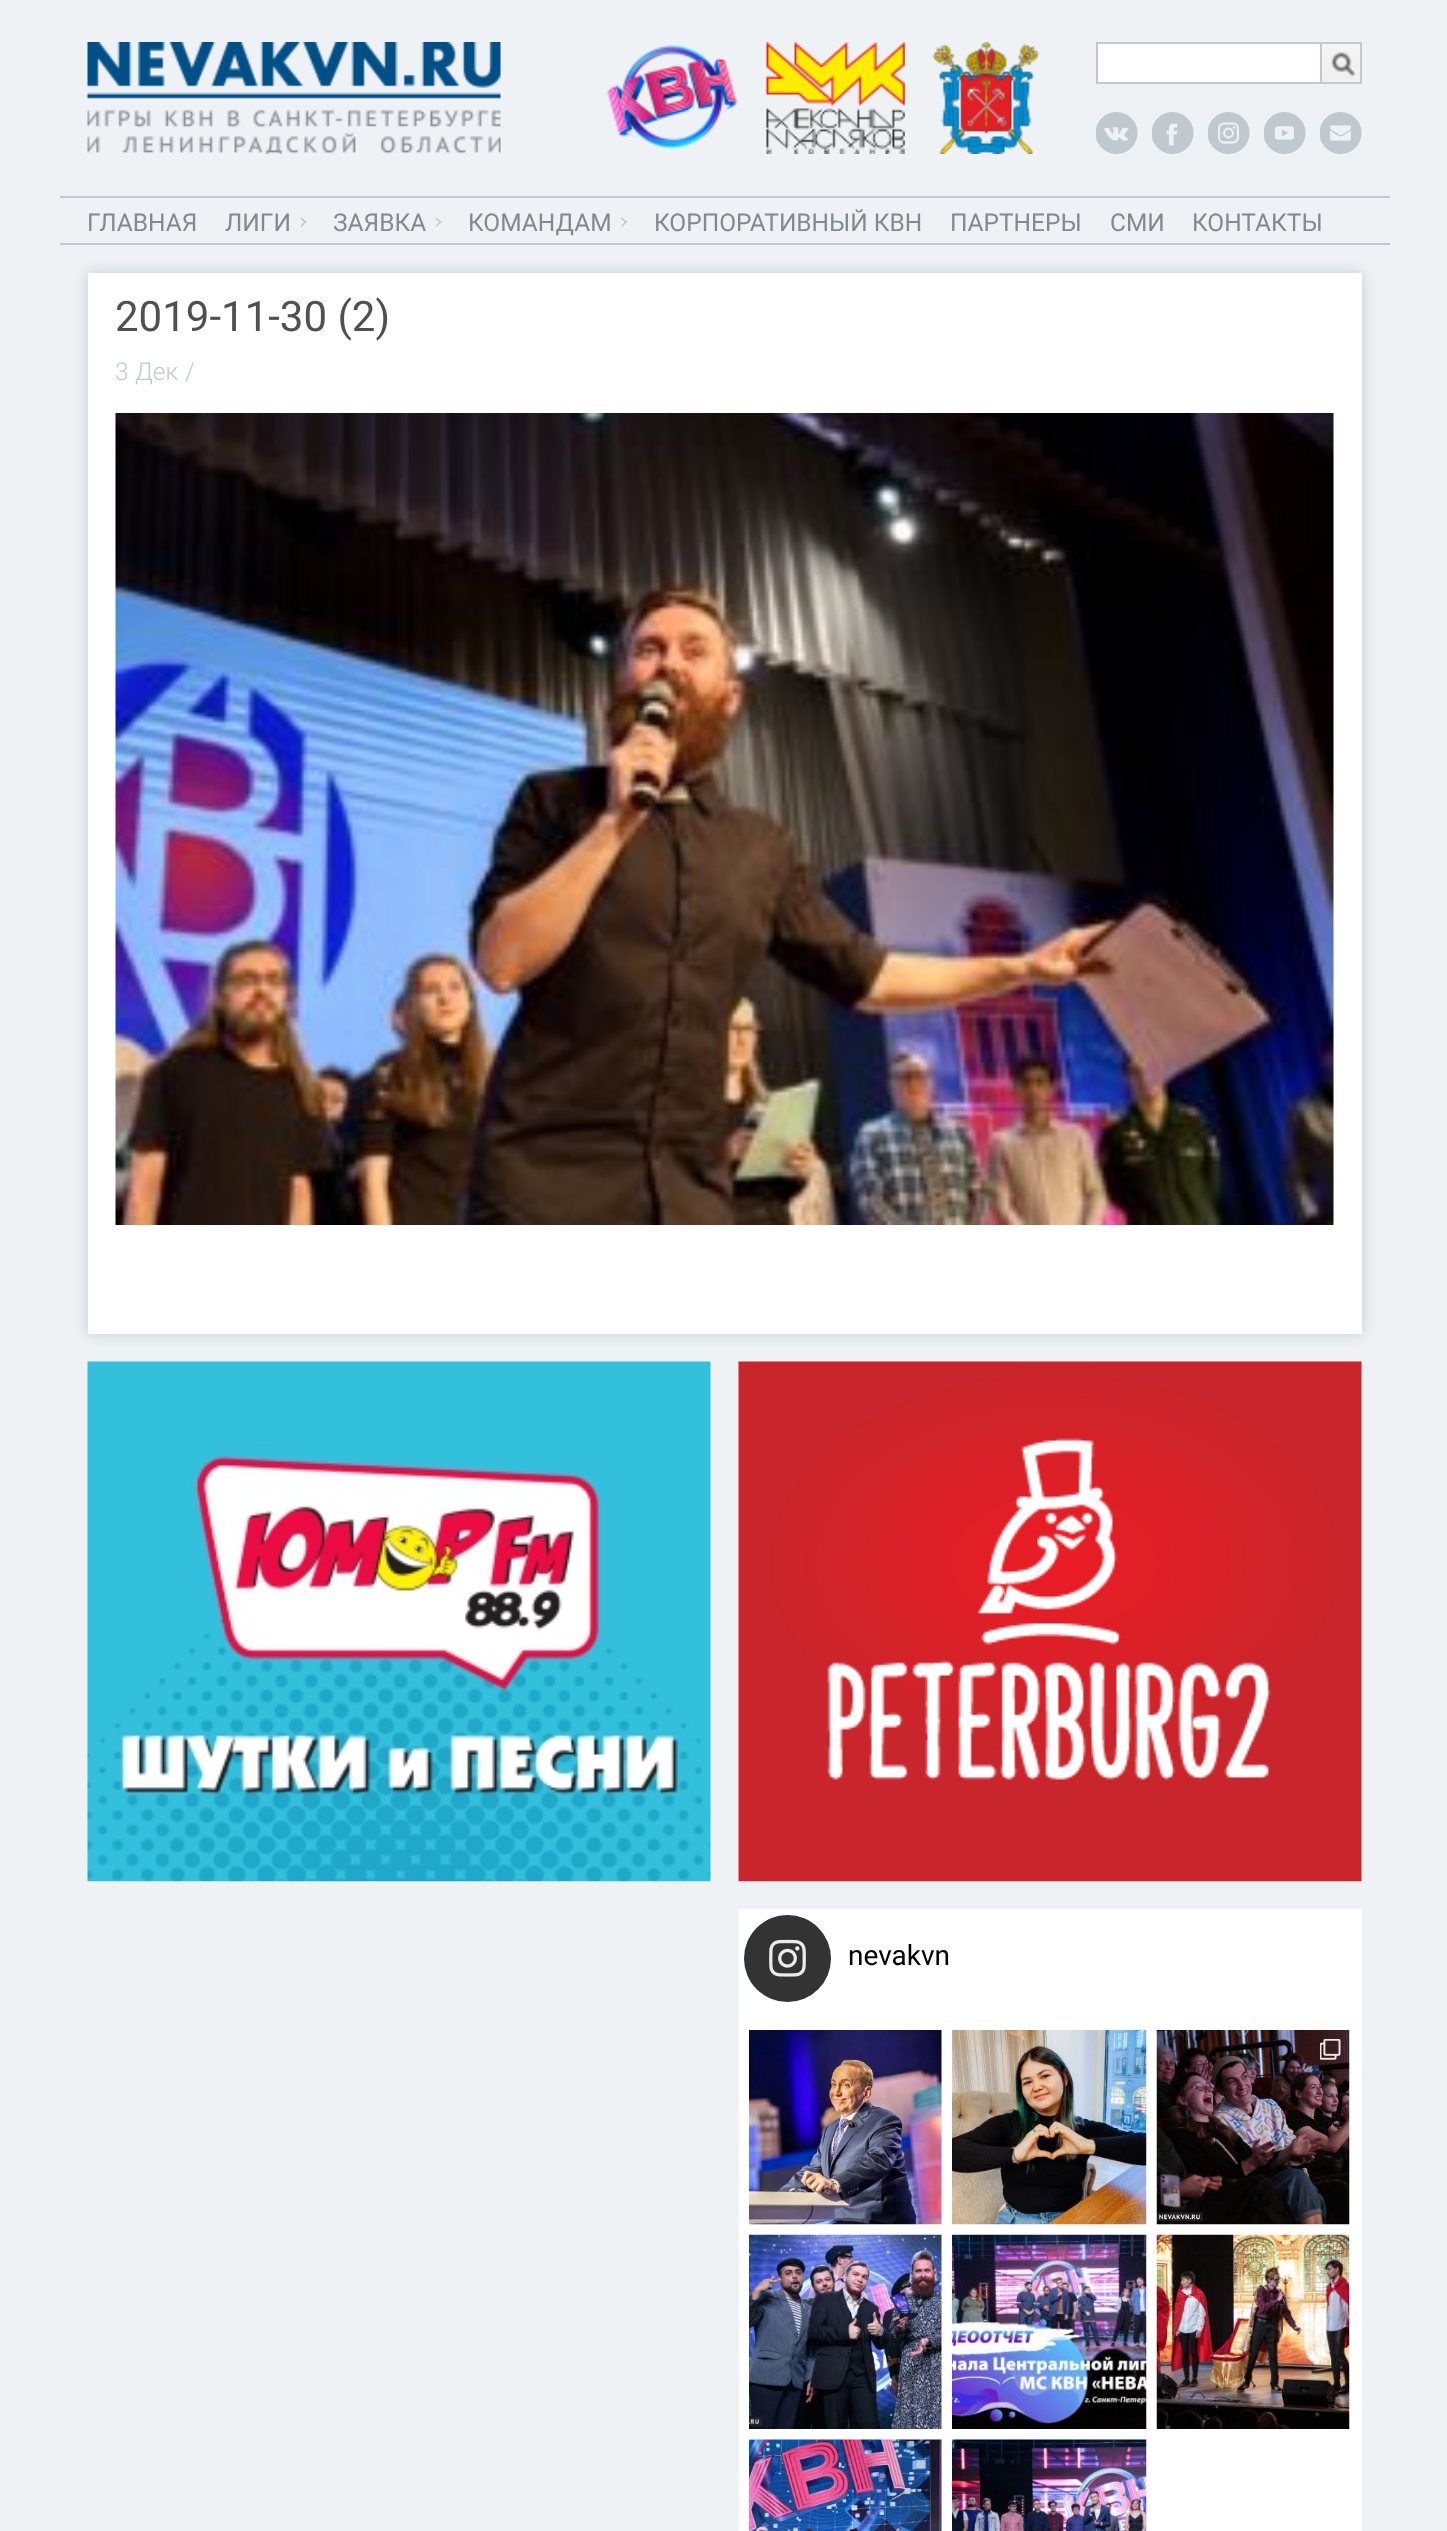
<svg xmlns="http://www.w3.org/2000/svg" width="1447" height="2531">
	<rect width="100%" height="100%" fill="#EEF2F5" />
	<image x="87" y="42" width="414" height="112" href="assets/img1.png" />
	<image x="606" y="45" width="132" height="104" href="assets/img2.png" />
	<image x="766" y="42" width="139" height="112" href="assets/img3.png" />
	<image x="932" y="42" width="108" height="112" href="assets/img4.png" />
	<rect x="1098" y="44" width="222" height="38" fill="#FFFFFF" />
	<rect x="1097" y="43" width="264" height="40" fill="none" stroke="#C1C9CE" stroke-width="2" />
	<image x="1322" y="44" width="38" height="38" href="assets/img5.png" />
	<rect x="1321" y="43" width="40" height="40" fill="none" stroke="#C1C9CE" stroke-width="2" />
	<image x="1096" y="112" width="42" height="42" href="assets/img6.png" />
	<image x="1152" y="112" width="42" height="42" href="assets/img7.png" />
	<image x="1208" y="112" width="42" height="42" href="assets/img8.png" />
	<image x="1264" y="112" width="42" height="42" href="assets/img9.png" />
	<image x="1320" y="112" width="42" height="42" href="assets/img10.png" />
	<rect x="60" y="196" width="1330" height="2" fill="#C1C9CE" />
	<rect x="60" y="243" width="1330" height="2" fill="#C1C9CE" />
	<g font-family="Roboto" font-size="24.5" fill="#838A8F">
		<text x="87" y="231">ГЛАВНАЯ</text>
		<text x="225" y="231">ЛИГИ</text>
	</g>
	<path d="M300.5 218.5L301.5 217.5L306.5 222L305 223.5Z" fill="#C1C9CE" />
	<path d="M300.5 226L305 221L306.5 222L301.5 227Z" fill="#C1C9CE" />
	<text x="333" y="231" font-family="Roboto" font-size="24.5" fill="#838A8F">ЗАЯВКА</text>
	<path d="M435.5 218.5L436.5 217.5L441.5 222L440.5 223.5Z" fill="#C1C9CE" />
	<path d="M435.5 226L440.5 221L441.5 222L436.5 227Z" fill="#C1C9CE" />
	<text x="468" y="231" font-family="Roboto" font-size="24.5" fill="#838A8F">КОМАНДАМ</text>
	<path d="M621 218.5L622 217.5L627 222L626 223.5Z" fill="#C1C9CE" />
	<path d="M621 226L626 221L627 222L622 227Z" fill="#C1C9CE" />
	<g font-family="Roboto" font-size="24.5" fill="#838A8F">
		<text x="654" y="231">КОРПОРАТИВНЫЙ КВН</text>
		<text x="950" y="231">ПАРТНЕРЫ</text>
		<text x="1110" y="231">СМИ</text>
		<text x="1192" y="231">КОНТАКТЫ</text>
	</g>
	<rect x="88" y="273" width="1274" height="1061" fill="#C1C9CE" filter="blur(7px)" />
	<rect x="88" y="273" width="1274" height="1061" fill="#FFFFFF" />
	<text x="115" y="331" font-family="Roboto" font-size="42" fill="#505050">2019-11-30 (2)</text>
	<g font-family="Roboto" font-size="24.5" font-weight="300" fill="#C1C9CE">
		<text x="115" y="380">3</text>
		<text x="135" y="380">Дек</text>
		<text x="185" y="380">/</text>
	</g>
	<image x="115" y="413" width="1219" height="812" href="assets/img11.png" />
	<image x="87" y="1361" width="624" height="521" href="assets/img12.png" />
	<image x="738" y="1361" width="624" height="521" href="assets/img13.png" />
	<rect x="739" y="1909" width="623" height="622" fill="#FFFFFF" />
	<circle cx="787.5" cy="1958.5" r="43.5" fill="#333333" />
	<image x="769" y="1939" width="37" height="38" href="assets/img14.png" />
	<text x="848" y="1965" font-family="Roboto" font-size="28" fill="#000000">nevakvn</text>
	<image x="749" y="2030" width="193" height="195" href="assets/img15.png" />
	<image x="952" y="2030" width="195" height="195" href="assets/img16.png" />
	<image x="1156" y="2030" width="194" height="195" href="assets/img17.png" />
	<image x="1320" y="2039" width="21" height="21" href="assets/img18.png" />
	<image x="749" y="2234" width="193" height="195" href="assets/img19.png" />
	<image x="952" y="2234" width="195" height="195" href="assets/img20.png" />
	<image x="1156" y="2234" width="194" height="195" href="assets/img21.png" />
	<image x="749" y="2439" width="193" height="92" href="assets/img22.png" />
	<image x="952" y="2439" width="195" height="92" href="assets/img23.png" />
</svg>
